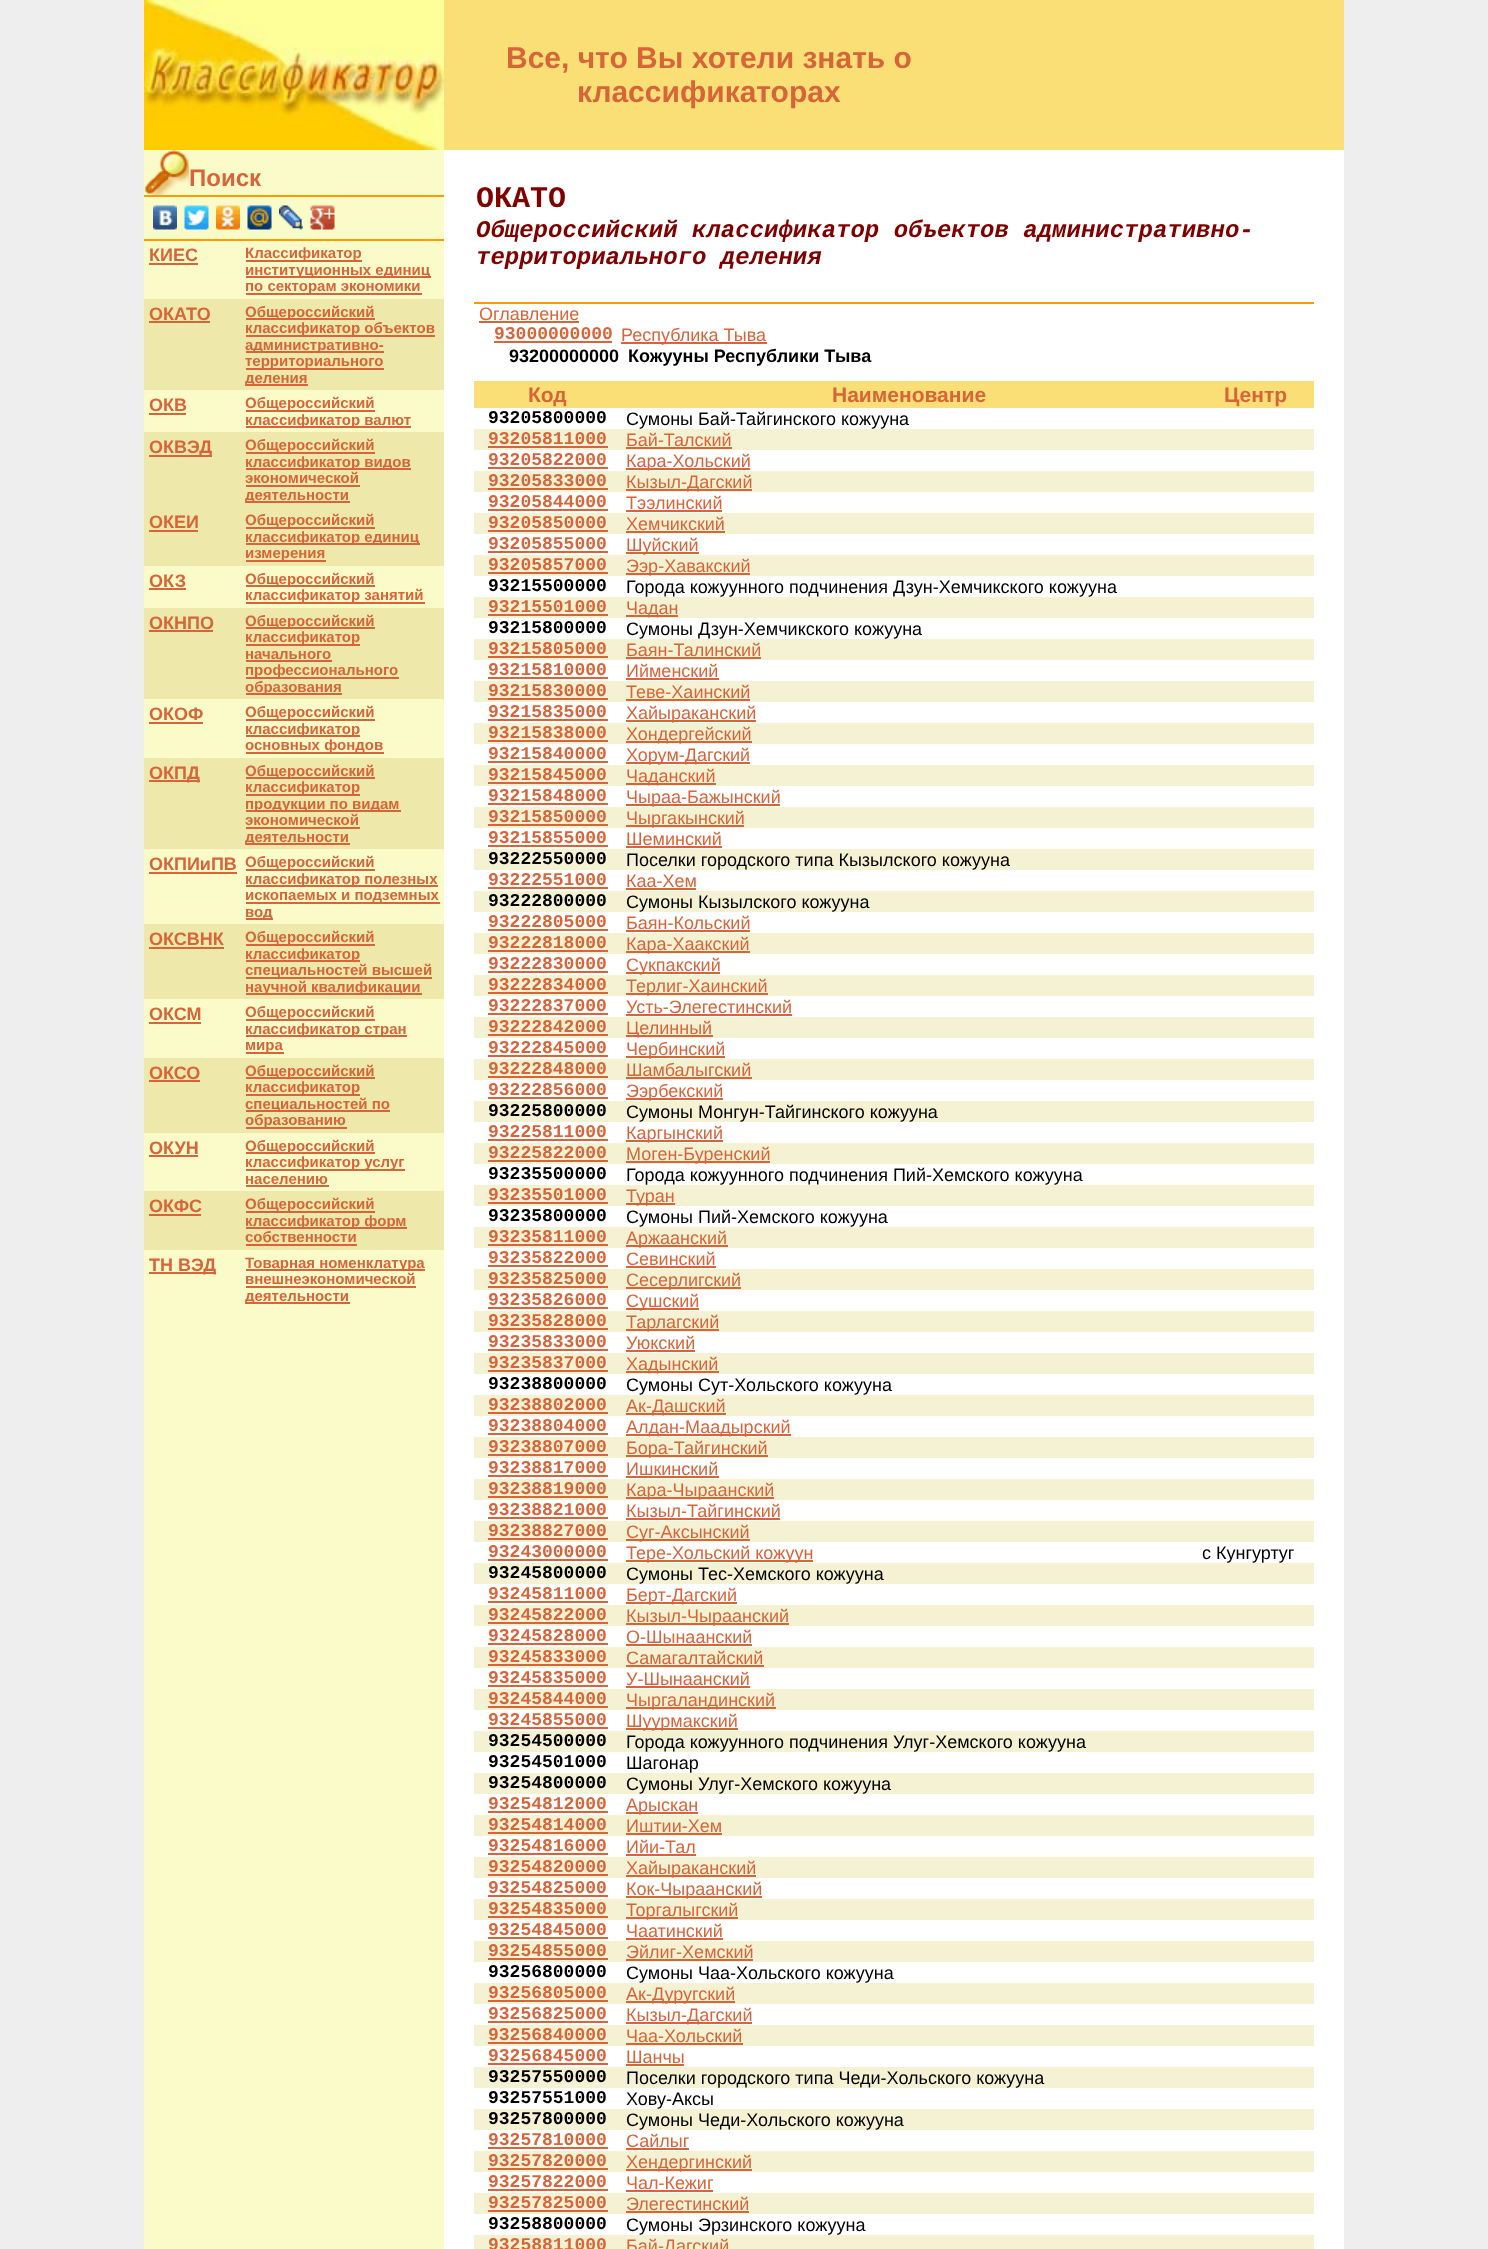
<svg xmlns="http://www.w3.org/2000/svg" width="1488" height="2249">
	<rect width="100%" height="100%" fill="#EEEEEE" />
	<rect x="444" y="150" width="900" height="2099" fill="#FFFFFF" />
	<image x="144" y="0" width="300" height="150" href="assets/img1.png" />
	<rect x="444" y="0" width="900" height="150" fill="#F9DF76" />
	<g font-family="Liberation Sans" font-size="30" font-weight="700" fill="#D86539">
		<text x="506" y="68">Все, что Вы хотели знать о</text>
		<text x="577" y="102">классификаторах</text>
	</g>
	<rect x="144" y="150" width="300" height="2099" fill="#FBFBCA" />
	<rect x="144" y="195" width="300" height="2" fill="#FF9900" />
	<image x="145" y="150" width="44" height="45" href="assets/img2.png" />
	<text x="189" y="186" font-family="Liberation Sans" font-size="24" font-weight="700" fill="#D86539">Поиск</text>
	<rect x="144" y="239" width="300" height="2" fill="#FF9900" />
	<image x="153" y="205" width="24" height="25" href="assets/img3.png" />
	<image x="184" y="205" width="25" height="25" href="assets/img4.png" />
	<image x="216" y="205" width="24" height="25" href="assets/img5.png" />
	<image x="247" y="205" width="25" height="25" href="assets/img6.png" />
	<image x="279" y="205" width="24" height="25" href="assets/img7.png" />
	<image x="310" y="205" width="25" height="25" href="assets/img8.png" />
	<text x="149" y="261" font-family="Liberation Sans" font-size="18" font-weight="700" fill="#D86539">КИЕС</text>
	<rect x="149" y="263" width="49" height="2" fill="#D86539" />
	<rect x="246" y="260" width="116" height="2" fill="#D86539" />
	<text x="245" y="258" font-family="Liberation Sans" font-size="15" font-weight="700" fill="#D86539">Классификатор</text>
	<rect x="246" y="276" width="185" height="2" fill="#D86539" />
	<text x="245" y="275" font-family="Liberation Sans" font-size="15" font-weight="700" fill="#D86539">институционных единиц</text>
	<rect x="246" y="293" width="176" height="2" fill="#D86539" />
	<text x="245" y="291" font-family="Liberation Sans" font-size="15" font-weight="700" fill="#D86539">по секторам экономики</text>
	<rect x="144" y="299" width="300" height="91" fill="#EEE8AA" />
	<text x="149" y="320" font-family="Liberation Sans" font-size="18" font-weight="700" fill="#D86539">ОКАТО</text>
	<rect x="149" y="321" width="61" height="2" fill="#D86539" />
	<rect x="246" y="318" width="129" height="2" fill="#D86539" />
	<text x="245" y="317" font-family="Liberation Sans" font-size="15" font-weight="700" fill="#D86539">Общероссийский</text>
	<rect x="246" y="335" width="189" height="2" fill="#D86539" />
	<text x="245" y="333" font-family="Liberation Sans" font-size="15" font-weight="700" fill="#D86539">классификатор объектов</text>
	<rect x="246" y="351" width="138" height="2" fill="#D86539" />
	<text x="245" y="350" font-family="Liberation Sans" font-size="15" font-weight="700" fill="#D86539">административно-</text>
	<rect x="246" y="368" width="138" height="2" fill="#D86539" />
	<text x="245" y="366" font-family="Liberation Sans" font-size="15" font-weight="700" fill="#D86539">территориального</text>
	<rect x="246" y="384" width="62" height="2" fill="#D86539" />
	<text x="245" y="383" font-family="Liberation Sans" font-size="15" font-weight="700" fill="#D86539">деления</text>
	<text x="149" y="411" font-family="Liberation Sans" font-size="18" font-weight="700" fill="#D86539">ОКВ</text>
	<rect x="149" y="413" width="37" height="2" fill="#D86539" />
	<rect x="246" y="410" width="129" height="2" fill="#D86539" />
	<text x="245" y="408" font-family="Liberation Sans" font-size="15" font-weight="700" fill="#D86539">Общероссийский</text>
	<rect x="246" y="426" width="165" height="2" fill="#D86539" />
	<text x="245" y="425" font-family="Liberation Sans" font-size="15" font-weight="700" fill="#D86539">классификатор валют</text>
	<rect x="144" y="432" width="300" height="75" fill="#EEE8AA" />
	<rect x="149" y="455" width="63" height="2" fill="#D86539" />
	<text x="149" y="453" font-family="Liberation Sans" font-size="18" font-weight="700" fill="#D86539">ОКВЭД</text>
	<rect x="246" y="452" width="129" height="2" fill="#D86539" />
	<text x="245" y="450" font-family="Liberation Sans" font-size="15" font-weight="700" fill="#D86539">Общероссийский</text>
	<rect x="246" y="468" width="165" height="2" fill="#D86539" />
	<g font-family="Liberation Sans" font-size="15" font-weight="700" fill="#D86539">
		<text x="245" y="467">классификатор видов</text>
		<text x="245" y="483">экономической</text>
	</g>
	<rect x="246" y="485" width="114" height="2" fill="#D86539" />
	<rect x="246" y="501" width="104" height="2" fill="#D86539" />
	<text x="245" y="500" font-family="Liberation Sans" font-size="15" font-weight="700" fill="#D86539">деятельности</text>
	<rect x="144" y="507" width="300" height="59" fill="#EEE8AA" />
	<text x="149" y="528" font-family="Liberation Sans" font-size="18" font-weight="700" fill="#D86539">ОКЕИ</text>
	<rect x="149" y="530" width="49" height="2" fill="#D86539" />
	<rect x="246" y="527" width="129" height="2" fill="#D86539" />
	<text x="245" y="525" font-family="Liberation Sans" font-size="15" font-weight="700" fill="#D86539">Общероссийский</text>
	<rect x="246" y="543" width="174" height="2" fill="#D86539" />
	<text x="245" y="542" font-family="Liberation Sans" font-size="15" font-weight="700" fill="#D86539">классификатор единиц</text>
	<rect x="246" y="560" width="80" height="2" fill="#D86539" />
	<text x="245" y="558" font-family="Liberation Sans" font-size="15" font-weight="700" fill="#D86539">измерения</text>
	<text x="149" y="587" font-family="Liberation Sans" font-size="18" font-weight="700" fill="#D86539">ОКЗ</text>
	<rect x="149" y="588" width="37" height="2" fill="#D86539" />
	<rect x="246" y="585" width="129" height="2" fill="#D86539" />
	<text x="245" y="584" font-family="Liberation Sans" font-size="15" font-weight="700" fill="#D86539">Общероссийский</text>
	<rect x="246" y="602" width="179" height="2" fill="#D86539" />
	<text x="245" y="600" font-family="Liberation Sans" font-size="15" font-weight="700" fill="#D86539">классификатор занятий</text>
	<rect x="144" y="608" width="300" height="91" fill="#EEE8AA" />
	<text x="149" y="629" font-family="Liberation Sans" font-size="18" font-weight="700" fill="#D86539">ОКНПО</text>
	<rect x="149" y="630" width="64" height="2" fill="#D86539" />
	<rect x="246" y="627" width="129" height="2" fill="#D86539" />
	<text x="245" y="626" font-family="Liberation Sans" font-size="15" font-weight="700" fill="#D86539">Общероссийский</text>
	<rect x="246" y="644" width="114" height="2" fill="#D86539" />
	<g font-family="Liberation Sans" font-size="15" font-weight="700" fill="#D86539">
		<text x="245" y="642">классификатор</text>
		<text x="245" y="659">начального</text>
	</g>
	<rect x="246" y="660" width="86" height="2" fill="#D86539" />
	<rect x="246" y="677" width="153" height="2" fill="#D86539" />
	<text x="245" y="675" font-family="Liberation Sans" font-size="15" font-weight="700" fill="#D86539">профессионального</text>
	<rect x="246" y="693" width="96" height="2" fill="#D86539" />
	<text x="245" y="692" font-family="Liberation Sans" font-size="15" font-weight="700" fill="#D86539">образования</text>
	<text x="149" y="720" font-family="Liberation Sans" font-size="18" font-weight="700" fill="#D86539">ОКОФ</text>
	<rect x="149" y="722" width="54" height="2" fill="#D86539" />
	<rect x="246" y="719" width="129" height="2" fill="#D86539" />
	<text x="245" y="717" font-family="Liberation Sans" font-size="15" font-weight="700" fill="#D86539">Общероссийский</text>
	<rect x="246" y="735" width="114" height="2" fill="#D86539" />
	<text x="245" y="734" font-family="Liberation Sans" font-size="15" font-weight="700" fill="#D86539">классификатор</text>
	<rect x="246" y="752" width="138" height="2" fill="#D86539" />
	<text x="245" y="750" font-family="Liberation Sans" font-size="15" font-weight="700" fill="#D86539">основных фондов</text>
	<rect x="144" y="758" width="300" height="91" fill="#EEE8AA" />
	<rect x="149" y="780" width="51" height="2" fill="#D86539" />
	<text x="149" y="779" font-family="Liberation Sans" font-size="18" font-weight="700" fill="#D86539">ОКПД</text>
	<rect x="246" y="777" width="129" height="2" fill="#D86539" />
	<text x="245" y="776" font-family="Liberation Sans" font-size="15" font-weight="700" fill="#D86539">Общероссийский</text>
	<rect x="246" y="794" width="114" height="2" fill="#D86539" />
	<text x="245" y="792" font-family="Liberation Sans" font-size="15" font-weight="700" fill="#D86539">классификатор</text>
	<rect x="246" y="810" width="155" height="2" fill="#D86539" />
	<g font-family="Liberation Sans" font-size="15" font-weight="700" fill="#D86539">
		<text x="245" y="809">продукции по видам</text>
		<text x="245" y="825">экономической</text>
	</g>
	<rect x="246" y="827" width="114" height="2" fill="#D86539" />
	<rect x="246" y="843" width="104" height="2" fill="#D86539" />
	<text x="245" y="842" font-family="Liberation Sans" font-size="15" font-weight="700" fill="#D86539">деятельности</text>
	<text x="149" y="870" font-family="Liberation Sans" font-size="18" font-weight="700" fill="#D86539">ОКПИиПВ</text>
	<rect x="149" y="872" width="88" height="2" fill="#D86539" />
	<rect x="246" y="869" width="129" height="2" fill="#D86539" />
	<text x="245" y="867" font-family="Liberation Sans" font-size="15" font-weight="700" fill="#D86539">Общероссийский</text>
	<rect x="246" y="885" width="192" height="2" fill="#D86539" />
	<text x="245" y="884" font-family="Liberation Sans" font-size="15" font-weight="700" fill="#D86539">классификатор полезных</text>
	<rect x="246" y="902" width="194" height="2" fill="#D86539" />
	<text x="245" y="900" font-family="Liberation Sans" font-size="15" font-weight="700" fill="#D86539">ископаемых и подземных</text>
	<rect x="246" y="918" width="27" height="2" fill="#D86539" />
	<text x="245" y="917" font-family="Liberation Sans" font-size="15" font-weight="700" fill="#D86539">вод</text>
	<rect x="144" y="924" width="300" height="75" fill="#EEE8AA" />
	<text x="149" y="945" font-family="Liberation Sans" font-size="18" font-weight="700" fill="#D86539">ОКСВНК</text>
	<rect x="149" y="947" width="75" height="2" fill="#D86539" />
	<rect x="246" y="944" width="129" height="2" fill="#D86539" />
	<text x="245" y="942" font-family="Liberation Sans" font-size="15" font-weight="700" fill="#D86539">Общероссийский</text>
	<rect x="246" y="960" width="114" height="2" fill="#D86539" />
	<text x="245" y="959" font-family="Liberation Sans" font-size="15" font-weight="700" fill="#D86539">классификатор</text>
	<rect x="246" y="977" width="186" height="2" fill="#D86539" />
	<text x="245" y="975" font-family="Liberation Sans" font-size="15" font-weight="700" fill="#D86539">специальностей высшей</text>
	<rect x="246" y="993" width="176" height="2" fill="#D86539" />
	<text x="245" y="992" font-family="Liberation Sans" font-size="15" font-weight="700" fill="#D86539">научной квалификации</text>
	<text x="149" y="1020" font-family="Liberation Sans" font-size="18" font-weight="700" fill="#D86539">ОКСМ</text>
	<rect x="149" y="1022" width="52" height="2" fill="#D86539" />
	<rect x="246" y="1019" width="129" height="2" fill="#D86539" />
	<text x="245" y="1017" font-family="Liberation Sans" font-size="15" font-weight="700" fill="#D86539">Общероссийский</text>
	<rect x="246" y="1035" width="161" height="2" fill="#D86539" />
	<text x="245" y="1034" font-family="Liberation Sans" font-size="15" font-weight="700" fill="#D86539">классификатор стран</text>
	<rect x="246" y="1052" width="38" height="2" fill="#D86539" />
	<text x="245" y="1050" font-family="Liberation Sans" font-size="15" font-weight="700" fill="#D86539">мира</text>
	<rect x="144" y="1058" width="300" height="75" fill="#EEE8AA" />
	<text x="149" y="1079" font-family="Liberation Sans" font-size="18" font-weight="700" fill="#D86539">ОКСО</text>
	<rect x="149" y="1080" width="51" height="2" fill="#D86539" />
	<rect x="246" y="1077" width="129" height="2" fill="#D86539" />
	<text x="245" y="1076" font-family="Liberation Sans" font-size="15" font-weight="700" fill="#D86539">Общероссийский</text>
	<rect x="246" y="1094" width="114" height="2" fill="#D86539" />
	<text x="245" y="1092" font-family="Liberation Sans" font-size="15" font-weight="700" fill="#D86539">классификатор</text>
	<rect x="246" y="1110" width="144" height="2" fill="#D86539" />
	<text x="245" y="1109" font-family="Liberation Sans" font-size="15" font-weight="700" fill="#D86539">специальностей по</text>
	<rect x="246" y="1127" width="101" height="2" fill="#D86539" />
	<text x="245" y="1125" font-family="Liberation Sans" font-size="15" font-weight="700" fill="#D86539">образованию</text>
	<text x="149" y="1154" font-family="Liberation Sans" font-size="18" font-weight="700" fill="#D86539">ОКУН</text>
	<rect x="149" y="1155" width="49" height="2" fill="#D86539" />
	<rect x="246" y="1152" width="129" height="2" fill="#D86539" />
	<text x="245" y="1151" font-family="Liberation Sans" font-size="15" font-weight="700" fill="#D86539">Общероссийский</text>
	<rect x="246" y="1169" width="159" height="2" fill="#D86539" />
	<g font-family="Liberation Sans" font-size="15" font-weight="700" fill="#D86539">
		<text x="245" y="1167">классификатор услуг</text>
		<text x="245" y="1184">населению</text>
	</g>
	<rect x="246" y="1185" width="83" height="2" fill="#D86539" />
	<rect x="144" y="1191" width="300" height="59" fill="#EEE8AA" />
	<text x="149" y="1212" font-family="Liberation Sans" font-size="18" font-weight="700" fill="#D86539">ОКФС</text>
	<rect x="149" y="1214" width="52" height="2" fill="#D86539" />
	<rect x="246" y="1211" width="129" height="2" fill="#D86539" />
	<text x="245" y="1209" font-family="Liberation Sans" font-size="15" font-weight="700" fill="#D86539">Общероссийский</text>
	<rect x="246" y="1227" width="161" height="2" fill="#D86539" />
	<g font-family="Liberation Sans" font-size="15" font-weight="700" fill="#D86539">
		<text x="245" y="1226">классификатор форм</text>
		<text x="245" y="1242">собственности</text>
	</g>
	<rect x="246" y="1244" width="111" height="2" fill="#D86539" />
	<rect x="149" y="1272" width="67" height="2" fill="#D86539" />
	<text x="149" y="1271" font-family="Liberation Sans" font-size="18" font-weight="700" fill="#D86539">ТН ВЭД</text>
	<rect x="246" y="1269" width="179" height="2" fill="#D86539" />
	<g font-family="Liberation Sans" font-size="15" font-weight="700" fill="#D86539">
		<text x="245" y="1268">Товарная номенклатура</text>
		<text x="245" y="1284">внешнеэкономической</text>
	</g>
	<rect x="246" y="1286" width="170" height="2" fill="#D86539" />
	<rect x="246" y="1302" width="104" height="2" fill="#D86539" />
	<text x="245" y="1301" font-family="Liberation Sans" font-size="15" font-weight="700" fill="#D86539">деятельности</text>
	<text x="476" y="207" font-family="Liberation Mono" font-size="30" font-weight="700" fill="#800000">ОКАТО</text>
	<g font-family="Liberation Mono" font-size="24" font-weight="700" font-style="italic" fill="#800000">
		<text x="476" y="237">Общероссийский классификатор объектов административно-</text>
		<text x="476" y="264">территориального деления</text>
	</g>
	<rect x="474" y="302" width="840" height="2" fill="#FF9900" />
	<text x="479" y="320" font-family="Liberation Sans" font-size="18" fill="#D86539">Оглавление</text>
	<rect x="479" y="321" width="100" height="2" fill="#D86539" />
	<text x="494" y="339" font-family="Liberation Mono" font-size="18" font-weight="700" fill="#D86539">93000000000</text>
	<rect x="494" y="341" width="118" height="2" fill="#D86539" />
	<rect x="621" y="342" width="146" height="2" fill="#D86539" />
	<text x="621" y="341" font-family="Liberation Sans" font-size="18" fill="#D86539">Республика Тыва</text>
	<g font-family="Liberation Sans" font-size="18" font-weight="700" fill="#000000">
		<text x="509" y="362">93200000000</text>
		<text x="628" y="362">Кожууны Республики Тыва</text>
	</g>
	<rect x="474" y="381" width="840" height="27" fill="#F9DF76" />
	<g font-family="Liberation Sans" font-size="21" font-weight="700" fill="#D86539">
		<text x="528" y="402">Код</text>
		<text x="832" y="402">Наименование</text>
		<text x="1224" y="402">Центр</text>
	</g>
	<text x="488" y="423" font-family="Liberation Mono" font-size="18" font-weight="700" fill="#000000">93205800000</text>
	<text x="626" y="425" font-family="Liberation Sans" font-size="18" fill="#000000">Сумоны Бай-Тайгинского кожууна</text>
	<rect x="474" y="429" width="840" height="21" fill="#F5F2D3" />
	<text x="488" y="444" font-family="Liberation Mono" font-size="18" font-weight="700" fill="#D86539">93205811000</text>
	<rect x="488" y="446" width="120" height="2" fill="#D86539" />
	<text x="626" y="446" font-family="Liberation Sans" font-size="18" fill="#D86539">Бай-Талский</text>
	<rect x="626" y="447" width="106" height="2" fill="#D86539" />
	<text x="488" y="465" font-family="Liberation Mono" font-size="18" font-weight="700" fill="#D86539">93205822000</text>
	<rect x="488" y="467" width="120" height="2" fill="#D86539" />
	<rect x="626" y="468" width="124" height="2" fill="#D86539" />
	<text x="626" y="467" font-family="Liberation Sans" font-size="18" fill="#D86539">Кара-Хольский</text>
	<rect x="474" y="471" width="840" height="21" fill="#F5F2D3" />
	<text x="488" y="486" font-family="Liberation Mono" font-size="18" font-weight="700" fill="#D86539">93205833000</text>
	<rect x="488" y="488" width="120" height="2" fill="#D86539" />
	<rect x="626" y="489" width="126" height="2" fill="#D86539" />
	<text x="626" y="488" font-family="Liberation Sans" font-size="18" fill="#D86539">Кызыл-Дагский</text>
	<text x="488" y="507" font-family="Liberation Mono" font-size="18" font-weight="700" fill="#D86539">93205844000</text>
	<rect x="488" y="509" width="120" height="2" fill="#D86539" />
	<text x="626" y="509" font-family="Liberation Sans" font-size="18" fill="#D86539">Тээлинский</text>
	<rect x="626" y="510" width="96" height="2" fill="#D86539" />
	<rect x="474" y="513" width="840" height="21" fill="#F5F2D3" />
	<text x="488" y="528" font-family="Liberation Mono" font-size="18" font-weight="700" fill="#D86539">93205850000</text>
	<rect x="488" y="530" width="120" height="2" fill="#D86539" />
	<text x="626" y="530" font-family="Liberation Sans" font-size="18" fill="#D86539">Хемчикский</text>
	<rect x="626" y="531" width="99" height="2" fill="#D86539" />
	<text x="488" y="549" font-family="Liberation Mono" font-size="18" font-weight="700" fill="#D86539">93205855000</text>
	<rect x="488" y="551" width="120" height="2" fill="#D86539" />
	<rect x="626" y="552" width="73" height="2" fill="#D86539" />
	<text x="626" y="551" font-family="Liberation Sans" font-size="18" fill="#D86539">Шуйский</text>
	<rect x="474" y="555" width="840" height="21" fill="#F5F2D3" />
	<text x="488" y="570" font-family="Liberation Mono" font-size="18" font-weight="700" fill="#D86539">93205857000</text>
	<rect x="488" y="572" width="120" height="2" fill="#D86539" />
	<rect x="626" y="573" width="124" height="2" fill="#D86539" />
	<text x="626" y="572" font-family="Liberation Sans" font-size="18" fill="#D86539">Ээр-Хавакский</text>
	<text x="488" y="591" font-family="Liberation Mono" font-size="18" font-weight="700" fill="#000000">93215500000</text>
	<text x="626" y="593" font-family="Liberation Sans" font-size="18" fill="#000000">Города кожуунного подчинения Дзун-Хемчикского кожууна</text>
	<rect x="474" y="597" width="840" height="21" fill="#F5F2D3" />
	<text x="488" y="612" font-family="Liberation Mono" font-size="18" font-weight="700" fill="#D86539">93215501000</text>
	<rect x="488" y="614" width="120" height="2" fill="#D86539" />
	<rect x="626" y="615" width="52" height="2" fill="#D86539" />
	<text x="626" y="614" font-family="Liberation Sans" font-size="18" fill="#D86539">Чадан</text>
	<text x="488" y="633" font-family="Liberation Mono" font-size="18" font-weight="700" fill="#000000">93215800000</text>
	<text x="626" y="635" font-family="Liberation Sans" font-size="18" fill="#000000">Сумоны Дзун-Хемчикского кожууна</text>
	<rect x="474" y="639" width="840" height="21" fill="#F5F2D3" />
	<text x="488" y="654" font-family="Liberation Mono" font-size="18" font-weight="700" fill="#D86539">93215805000</text>
	<rect x="488" y="656" width="120" height="2" fill="#D86539" />
	<text x="626" y="656" font-family="Liberation Sans" font-size="18" fill="#D86539">Баян-Талинский</text>
	<rect x="626" y="657" width="135" height="2" fill="#D86539" />
	<text x="488" y="675" font-family="Liberation Mono" font-size="18" font-weight="700" fill="#D86539">93215810000</text>
	<rect x="488" y="677" width="120" height="2" fill="#D86539" />
	<text x="626" y="677" font-family="Liberation Sans" font-size="18" fill="#D86539">Ийменский</text>
	<rect x="626" y="678" width="93" height="2" fill="#D86539" />
	<rect x="474" y="681" width="840" height="21" fill="#F5F2D3" />
	<text x="488" y="696" font-family="Liberation Mono" font-size="18" font-weight="700" fill="#D86539">93215830000</text>
	<rect x="488" y="698" width="120" height="2" fill="#D86539" />
	<text x="626" y="698" font-family="Liberation Sans" font-size="18" fill="#D86539">Теве-Хаинский</text>
	<rect x="626" y="699" width="124" height="2" fill="#D86539" />
	<text x="488" y="717" font-family="Liberation Mono" font-size="18" font-weight="700" fill="#D86539">93215835000</text>
	<rect x="488" y="719" width="120" height="2" fill="#D86539" />
	<rect x="626" y="720" width="130" height="2" fill="#D86539" />
	<text x="626" y="719" font-family="Liberation Sans" font-size="18" fill="#D86539">Хайыраканский</text>
	<rect x="474" y="723" width="840" height="21" fill="#F5F2D3" />
	<text x="488" y="738" font-family="Liberation Mono" font-size="18" font-weight="700" fill="#D86539">93215838000</text>
	<rect x="488" y="740" width="120" height="2" fill="#D86539" />
	<rect x="626" y="741" width="126" height="2" fill="#D86539" />
	<text x="626" y="740" font-family="Liberation Sans" font-size="18" fill="#D86539">Хондергейский</text>
	<text x="488" y="759" font-family="Liberation Mono" font-size="18" font-weight="700" fill="#D86539">93215840000</text>
	<rect x="488" y="761" width="120" height="2" fill="#D86539" />
	<rect x="626" y="762" width="124" height="2" fill="#D86539" />
	<text x="626" y="761" font-family="Liberation Sans" font-size="18" fill="#D86539">Хорум-Дагский</text>
	<rect x="474" y="765" width="840" height="21" fill="#F5F2D3" />
	<text x="488" y="780" font-family="Liberation Mono" font-size="18" font-weight="700" fill="#D86539">93215845000</text>
	<rect x="488" y="782" width="120" height="2" fill="#D86539" />
	<rect x="626" y="783" width="90" height="2" fill="#D86539" />
	<text x="626" y="782" font-family="Liberation Sans" font-size="18" fill="#D86539">Чаданский</text>
	<text x="488" y="801" font-family="Liberation Mono" font-size="18" font-weight="700" fill="#D86539">93215848000</text>
	<rect x="488" y="803" width="120" height="2" fill="#D86539" />
	<rect x="626" y="804" width="154" height="2" fill="#D86539" />
	<text x="626" y="803" font-family="Liberation Sans" font-size="18" fill="#D86539">Чыраа-Бажынский</text>
	<rect x="474" y="807" width="840" height="21" fill="#F5F2D3" />
	<text x="488" y="822" font-family="Liberation Mono" font-size="18" font-weight="700" fill="#D86539">93215850000</text>
	<rect x="488" y="824" width="120" height="2" fill="#D86539" />
	<rect x="626" y="825" width="118" height="2" fill="#D86539" />
	<text x="626" y="824" font-family="Liberation Sans" font-size="18" fill="#D86539">Чыргакынский</text>
	<text x="488" y="843" font-family="Liberation Mono" font-size="18" font-weight="700" fill="#D86539">93215855000</text>
	<rect x="488" y="845" width="120" height="2" fill="#D86539" />
	<text x="626" y="845" font-family="Liberation Sans" font-size="18" fill="#D86539">Шеминский</text>
	<rect x="626" y="846" width="96" height="2" fill="#D86539" />
	<rect x="474" y="849" width="840" height="21" fill="#F5F2D3" />
	<text x="488" y="864" font-family="Liberation Mono" font-size="18" font-weight="700" fill="#000000">93222550000</text>
	<text x="626" y="866" font-family="Liberation Sans" font-size="18" fill="#000000">Поселки городского типа Кызылского кожууна</text>
	<text x="488" y="885" font-family="Liberation Mono" font-size="18" font-weight="700" fill="#D86539">93222551000</text>
	<rect x="488" y="887" width="120" height="2" fill="#D86539" />
	<text x="626" y="887" font-family="Liberation Sans" font-size="18" fill="#D86539">Каа-Хем</text>
	<rect x="626" y="888" width="70" height="2" fill="#D86539" />
	<rect x="474" y="891" width="840" height="21" fill="#F5F2D3" />
	<text x="488" y="906" font-family="Liberation Mono" font-size="18" font-weight="700" fill="#000000">93222800000</text>
	<text x="626" y="908" font-family="Liberation Sans" font-size="18" fill="#000000">Сумоны Кызылского кожууна</text>
	<text x="488" y="927" font-family="Liberation Mono" font-size="18" font-weight="700" fill="#D86539">93222805000</text>
	<rect x="488" y="929" width="120" height="2" fill="#D86539" />
	<text x="626" y="929" font-family="Liberation Sans" font-size="18" fill="#D86539">Баян-Кольский</text>
	<rect x="626" y="930" width="124" height="2" fill="#D86539" />
	<rect x="474" y="933" width="840" height="21" fill="#F5F2D3" />
	<text x="488" y="948" font-family="Liberation Mono" font-size="18" font-weight="700" fill="#D86539">93222818000</text>
	<rect x="488" y="950" width="120" height="2" fill="#D86539" />
	<rect x="626" y="951" width="124" height="2" fill="#D86539" />
	<text x="626" y="950" font-family="Liberation Sans" font-size="18" fill="#D86539">Кара-Хаакский</text>
	<text x="488" y="969" font-family="Liberation Mono" font-size="18" font-weight="700" fill="#D86539">93222830000</text>
	<rect x="488" y="971" width="120" height="2" fill="#D86539" />
	<rect x="626" y="972" width="94" height="2" fill="#D86539" />
	<text x="626" y="971" font-family="Liberation Sans" font-size="18" fill="#D86539">Сукпакский</text>
	<rect x="474" y="975" width="840" height="21" fill="#F5F2D3" />
	<text x="488" y="990" font-family="Liberation Mono" font-size="18" font-weight="700" fill="#D86539">93222834000</text>
	<rect x="488" y="992" width="120" height="2" fill="#D86539" />
	<rect x="626" y="993" width="142" height="2" fill="#D86539" />
	<text x="626" y="992" font-family="Liberation Sans" font-size="18" fill="#D86539">Терлиг-Хаинский</text>
	<text x="488" y="1011" font-family="Liberation Mono" font-size="18" font-weight="700" fill="#D86539">93222837000</text>
	<rect x="488" y="1013" width="120" height="2" fill="#D86539" />
	<text x="626" y="1013" font-family="Liberation Sans" font-size="18" fill="#D86539">Усть-Элегестинский</text>
	<rect x="626" y="1014" width="166" height="2" fill="#D86539" />
	<rect x="474" y="1017" width="840" height="21" fill="#F5F2D3" />
	<text x="488" y="1032" font-family="Liberation Mono" font-size="18" font-weight="700" fill="#D86539">93222842000</text>
	<rect x="488" y="1034" width="120" height="2" fill="#D86539" />
	<rect x="626" y="1035" width="87" height="2" fill="#D86539" />
	<text x="626" y="1034" font-family="Liberation Sans" font-size="18" fill="#D86539">Целинный</text>
	<text x="488" y="1053" font-family="Liberation Mono" font-size="18" font-weight="700" fill="#D86539">93222845000</text>
	<rect x="488" y="1055" width="120" height="2" fill="#D86539" />
	<rect x="626" y="1056" width="99" height="2" fill="#D86539" />
	<text x="626" y="1055" font-family="Liberation Sans" font-size="18" fill="#D86539">Чербинский</text>
	<rect x="474" y="1059" width="840" height="21" fill="#F5F2D3" />
	<text x="488" y="1074" font-family="Liberation Mono" font-size="18" font-weight="700" fill="#D86539">93222848000</text>
	<rect x="488" y="1076" width="120" height="2" fill="#D86539" />
	<text x="626" y="1076" font-family="Liberation Sans" font-size="18" fill="#D86539">Шамбалыгский</text>
	<rect x="626" y="1077" width="126" height="2" fill="#D86539" />
	<text x="488" y="1095" font-family="Liberation Mono" font-size="18" font-weight="700" fill="#D86539">93222856000</text>
	<rect x="488" y="1097" width="120" height="2" fill="#D86539" />
	<rect x="626" y="1098" width="97" height="2" fill="#D86539" />
	<text x="626" y="1097" font-family="Liberation Sans" font-size="18" fill="#D86539">Ээрбекский</text>
	<rect x="474" y="1101" width="840" height="21" fill="#F5F2D3" />
	<text x="488" y="1116" font-family="Liberation Mono" font-size="18" font-weight="700" fill="#000000">93225800000</text>
	<text x="626" y="1118" font-family="Liberation Sans" font-size="18" fill="#000000">Сумоны Монгун-Тайгинского кожууна</text>
	<text x="488" y="1137" font-family="Liberation Mono" font-size="18" font-weight="700" fill="#D86539">93225811000</text>
	<rect x="488" y="1139" width="120" height="2" fill="#D86539" />
	<rect x="626" y="1140" width="97" height="2" fill="#D86539" />
	<text x="626" y="1139" font-family="Liberation Sans" font-size="18" fill="#D86539">Каргынский</text>
	<rect x="474" y="1143" width="840" height="21" fill="#F5F2D3" />
	<text x="488" y="1158" font-family="Liberation Mono" font-size="18" font-weight="700" fill="#D86539">93225822000</text>
	<rect x="488" y="1160" width="120" height="2" fill="#D86539" />
	<rect x="626" y="1161" width="144" height="2" fill="#D86539" />
	<text x="626" y="1160" font-family="Liberation Sans" font-size="18" fill="#D86539">Моген-Буренский</text>
	<text x="488" y="1179" font-family="Liberation Mono" font-size="18" font-weight="700" fill="#000000">93235500000</text>
	<text x="626" y="1181" font-family="Liberation Sans" font-size="18" fill="#000000">Города кожуунного подчинения Пий-Хемского кожууна</text>
	<rect x="474" y="1185" width="840" height="21" fill="#F5F2D3" />
	<text x="488" y="1200" font-family="Liberation Mono" font-size="18" font-weight="700" fill="#D86539">93235501000</text>
	<rect x="488" y="1202" width="120" height="2" fill="#D86539" />
	<rect x="626" y="1203" width="49" height="2" fill="#D86539" />
	<text x="626" y="1202" font-family="Liberation Sans" font-size="18" fill="#D86539">Туран</text>
	<text x="488" y="1221" font-family="Liberation Mono" font-size="18" font-weight="700" fill="#000000">93235800000</text>
	<text x="626" y="1223" font-family="Liberation Sans" font-size="18" fill="#000000">Сумоны Пий-Хемского кожууна</text>
	<rect x="474" y="1227" width="840" height="21" fill="#F5F2D3" />
	<text x="488" y="1242" font-family="Liberation Mono" font-size="18" font-weight="700" fill="#D86539">93235811000</text>
	<rect x="488" y="1244" width="120" height="2" fill="#D86539" />
	<rect x="626" y="1245" width="102" height="2" fill="#D86539" />
	<text x="626" y="1244" font-family="Liberation Sans" font-size="18" fill="#D86539">Аржаанский</text>
	<text x="488" y="1263" font-family="Liberation Mono" font-size="18" font-weight="700" fill="#D86539">93235822000</text>
	<rect x="488" y="1265" width="120" height="2" fill="#D86539" />
	<text x="626" y="1265" font-family="Liberation Sans" font-size="18" fill="#D86539">Севинский</text>
	<rect x="626" y="1266" width="90" height="2" fill="#D86539" />
	<rect x="474" y="1269" width="840" height="21" fill="#F5F2D3" />
	<text x="488" y="1284" font-family="Liberation Mono" font-size="18" font-weight="700" fill="#D86539">93235825000</text>
	<rect x="488" y="1286" width="120" height="2" fill="#D86539" />
	<rect x="626" y="1287" width="115" height="2" fill="#D86539" />
	<text x="626" y="1286" font-family="Liberation Sans" font-size="18" fill="#D86539">Сесерлигский</text>
	<text x="488" y="1305" font-family="Liberation Mono" font-size="18" font-weight="700" fill="#D86539">93235826000</text>
	<rect x="488" y="1307" width="120" height="2" fill="#D86539" />
	<rect x="626" y="1308" width="73" height="2" fill="#D86539" />
	<text x="626" y="1307" font-family="Liberation Sans" font-size="18" fill="#D86539">Сушский</text>
	<rect x="474" y="1311" width="840" height="21" fill="#F5F2D3" />
	<text x="488" y="1326" font-family="Liberation Mono" font-size="18" font-weight="700" fill="#D86539">93235828000</text>
	<rect x="488" y="1328" width="120" height="2" fill="#D86539" />
	<rect x="626" y="1329" width="93" height="2" fill="#D86539" />
	<text x="626" y="1328" font-family="Liberation Sans" font-size="18" fill="#D86539">Тарлагский</text>
	<text x="488" y="1347" font-family="Liberation Mono" font-size="18" font-weight="700" fill="#D86539">93235833000</text>
	<rect x="488" y="1349" width="120" height="2" fill="#D86539" />
	<text x="626" y="1349" font-family="Liberation Sans" font-size="18" fill="#D86539">Уюкский</text>
	<rect x="626" y="1350" width="69" height="2" fill="#D86539" />
	<rect x="474" y="1353" width="840" height="21" fill="#F5F2D3" />
	<text x="488" y="1368" font-family="Liberation Mono" font-size="18" font-weight="700" fill="#D86539">93235837000</text>
	<rect x="488" y="1370" width="120" height="2" fill="#D86539" />
	<rect x="626" y="1371" width="93" height="2" fill="#D86539" />
	<text x="626" y="1370" font-family="Liberation Sans" font-size="18" fill="#D86539">Хадынский</text>
	<text x="488" y="1389" font-family="Liberation Mono" font-size="18" font-weight="700" fill="#000000">93238800000</text>
	<text x="626" y="1391" font-family="Liberation Sans" font-size="18" fill="#000000">Сумоны Сут-Хольского кожууна</text>
	<rect x="474" y="1395" width="840" height="21" fill="#F5F2D3" />
	<text x="488" y="1410" font-family="Liberation Mono" font-size="18" font-weight="700" fill="#D86539">93238802000</text>
	<rect x="488" y="1412" width="120" height="2" fill="#D86539" />
	<rect x="626" y="1413" width="100" height="2" fill="#D86539" />
	<text x="626" y="1412" font-family="Liberation Sans" font-size="18" fill="#D86539">Ак-Дашский</text>
	<text x="488" y="1431" font-family="Liberation Mono" font-size="18" font-weight="700" fill="#D86539">93238804000</text>
	<rect x="488" y="1433" width="120" height="2" fill="#D86539" />
	<rect x="626" y="1434" width="165" height="2" fill="#D86539" />
	<text x="626" y="1433" font-family="Liberation Sans" font-size="18" fill="#D86539">Алдан-Маадырский</text>
	<rect x="474" y="1437" width="840" height="21" fill="#F5F2D3" />
	<text x="488" y="1452" font-family="Liberation Mono" font-size="18" font-weight="700" fill="#D86539">93238807000</text>
	<rect x="488" y="1454" width="120" height="2" fill="#D86539" />
	<rect x="626" y="1455" width="142" height="2" fill="#D86539" />
	<text x="626" y="1454" font-family="Liberation Sans" font-size="18" fill="#D86539">Бора-Тайгинский</text>
	<text x="488" y="1473" font-family="Liberation Mono" font-size="18" font-weight="700" fill="#D86539">93238817000</text>
	<rect x="488" y="1475" width="120" height="2" fill="#D86539" />
	<text x="626" y="1475" font-family="Liberation Sans" font-size="18" fill="#D86539">Ишкинский</text>
	<rect x="626" y="1476" width="93" height="2" fill="#D86539" />
	<rect x="474" y="1479" width="840" height="21" fill="#F5F2D3" />
	<text x="488" y="1494" font-family="Liberation Mono" font-size="18" font-weight="700" fill="#D86539">93238819000</text>
	<rect x="488" y="1496" width="120" height="2" fill="#D86539" />
	<rect x="626" y="1497" width="148" height="2" fill="#D86539" />
	<text x="626" y="1496" font-family="Liberation Sans" font-size="18" fill="#D86539">Кара-Чыраанский</text>
	<text x="488" y="1515" font-family="Liberation Mono" font-size="18" font-weight="700" fill="#D86539">93238821000</text>
	<rect x="488" y="1517" width="120" height="2" fill="#D86539" />
	<text x="626" y="1517" font-family="Liberation Sans" font-size="18" fill="#D86539">Кызыл-Тайгинский</text>
	<rect x="626" y="1518" width="154" height="2" fill="#D86539" />
	<rect x="474" y="1521" width="840" height="21" fill="#F5F2D3" />
	<text x="488" y="1536" font-family="Liberation Mono" font-size="18" font-weight="700" fill="#D86539">93238827000</text>
	<rect x="488" y="1538" width="120" height="2" fill="#D86539" />
	<rect x="626" y="1539" width="124" height="2" fill="#D86539" />
	<text x="626" y="1538" font-family="Liberation Sans" font-size="18" fill="#D86539">Суг-Аксынский</text>
	<text x="488" y="1557" font-family="Liberation Mono" font-size="18" font-weight="700" fill="#D86539">93243000000</text>
	<rect x="488" y="1559" width="120" height="2" fill="#D86539" />
	<rect x="626" y="1560" width="187" height="2" fill="#D86539" />
	<text x="626" y="1559" font-family="Liberation Sans" font-size="18" fill="#D86539">Тере-Хольский кожуун</text>
	<text x="1202" y="1559" font-family="Liberation Sans" font-size="18" fill="#000000">с Кунгуртуг</text>
	<rect x="474" y="1563" width="840" height="21" fill="#F5F2D3" />
	<text x="488" y="1578" font-family="Liberation Mono" font-size="18" font-weight="700" fill="#000000">93245800000</text>
	<text x="626" y="1580" font-family="Liberation Sans" font-size="18" fill="#000000">Сумоны Тес-Хемского кожууна</text>
	<text x="488" y="1599" font-family="Liberation Mono" font-size="18" font-weight="700" fill="#D86539">93245811000</text>
	<rect x="488" y="1601" width="120" height="2" fill="#D86539" />
	<rect x="626" y="1602" width="111" height="2" fill="#D86539" />
	<text x="626" y="1601" font-family="Liberation Sans" font-size="18" fill="#D86539">Берт-Дагский</text>
	<rect x="474" y="1605" width="840" height="21" fill="#F5F2D3" />
	<text x="488" y="1620" font-family="Liberation Mono" font-size="18" font-weight="700" fill="#D86539">93245822000</text>
	<rect x="488" y="1622" width="120" height="2" fill="#D86539" />
	<rect x="626" y="1623" width="163" height="2" fill="#D86539" />
	<text x="626" y="1622" font-family="Liberation Sans" font-size="18" fill="#D86539">Кызыл-Чыраанский</text>
	<text x="488" y="1641" font-family="Liberation Mono" font-size="18" font-weight="700" fill="#D86539">93245828000</text>
	<rect x="488" y="1643" width="120" height="2" fill="#D86539" />
	<text x="626" y="1643" font-family="Liberation Sans" font-size="18" fill="#D86539">О-Шынаанский</text>
	<rect x="626" y="1644" width="126" height="2" fill="#D86539" />
	<rect x="474" y="1647" width="840" height="21" fill="#F5F2D3" />
	<text x="488" y="1662" font-family="Liberation Mono" font-size="18" font-weight="700" fill="#D86539">93245833000</text>
	<rect x="488" y="1664" width="120" height="2" fill="#D86539" />
	<text x="626" y="1664" font-family="Liberation Sans" font-size="18" fill="#D86539">Самагалтайский</text>
	<rect x="626" y="1665" width="138" height="2" fill="#D86539" />
	<text x="488" y="1683" font-family="Liberation Mono" font-size="18" font-weight="700" fill="#D86539">93245835000</text>
	<rect x="488" y="1685" width="120" height="2" fill="#D86539" />
	<text x="626" y="1685" font-family="Liberation Sans" font-size="18" fill="#D86539">У-Шынаанский</text>
	<rect x="626" y="1686" width="124" height="2" fill="#D86539" />
	<rect x="474" y="1689" width="840" height="21" fill="#F5F2D3" />
	<text x="488" y="1704" font-family="Liberation Mono" font-size="18" font-weight="700" fill="#D86539">93245844000</text>
	<rect x="488" y="1706" width="120" height="2" fill="#D86539" />
	<rect x="626" y="1707" width="150" height="2" fill="#D86539" />
	<text x="626" y="1706" font-family="Liberation Sans" font-size="18" fill="#D86539">Чыргаландинский</text>
	<text x="488" y="1725" font-family="Liberation Mono" font-size="18" font-weight="700" fill="#D86539">93245855000</text>
	<rect x="488" y="1727" width="120" height="2" fill="#D86539" />
	<rect x="626" y="1728" width="112" height="2" fill="#D86539" />
	<text x="626" y="1727" font-family="Liberation Sans" font-size="18" fill="#D86539">Шуурмакский</text>
	<rect x="474" y="1731" width="840" height="21" fill="#F5F2D3" />
	<text x="488" y="1746" font-family="Liberation Mono" font-size="18" font-weight="700" fill="#000000">93254500000</text>
	<text x="626" y="1748" font-family="Liberation Sans" font-size="18" fill="#000000">Города кожуунного подчинения Улуг-Хемского кожууна</text>
	<text x="488" y="1767" font-family="Liberation Mono" font-size="18" font-weight="700" fill="#000000">93254501000</text>
	<text x="626" y="1769" font-family="Liberation Sans" font-size="18" fill="#000000">Шагонар</text>
	<rect x="474" y="1773" width="840" height="21" fill="#F5F2D3" />
	<text x="488" y="1788" font-family="Liberation Mono" font-size="18" font-weight="700" fill="#000000">93254800000</text>
	<text x="626" y="1790" font-family="Liberation Sans" font-size="18" fill="#000000">Сумоны Улуг-Хемского кожууна</text>
	<text x="488" y="1809" font-family="Liberation Mono" font-size="18" font-weight="700" fill="#D86539">93254812000</text>
	<rect x="488" y="1811" width="120" height="2" fill="#D86539" />
	<rect x="626" y="1812" width="72" height="2" fill="#D86539" />
	<text x="626" y="1811" font-family="Liberation Sans" font-size="18" fill="#D86539">Арыскан</text>
	<rect x="474" y="1815" width="840" height="21" fill="#F5F2D3" />
	<text x="488" y="1830" font-family="Liberation Mono" font-size="18" font-weight="700" fill="#D86539">93254814000</text>
	<rect x="488" y="1832" width="120" height="2" fill="#D86539" />
	<text x="626" y="1832" font-family="Liberation Sans" font-size="18" fill="#D86539">Иштии-Хем</text>
	<rect x="626" y="1833" width="96" height="2" fill="#D86539" />
	<text x="488" y="1851" font-family="Liberation Mono" font-size="18" font-weight="700" fill="#D86539">93254816000</text>
	<rect x="488" y="1853" width="120" height="2" fill="#D86539" />
	<text x="626" y="1853" font-family="Liberation Sans" font-size="18" fill="#D86539">Ийи-Тал</text>
	<rect x="626" y="1854" width="70" height="2" fill="#D86539" />
	<rect x="474" y="1857" width="840" height="21" fill="#F5F2D3" />
	<text x="488" y="1872" font-family="Liberation Mono" font-size="18" font-weight="700" fill="#D86539">93254820000</text>
	<rect x="488" y="1874" width="120" height="2" fill="#D86539" />
	<rect x="626" y="1875" width="130" height="2" fill="#D86539" />
	<text x="626" y="1874" font-family="Liberation Sans" font-size="18" fill="#D86539">Хайыраканский</text>
	<text x="488" y="1893" font-family="Liberation Mono" font-size="18" font-weight="700" fill="#D86539">93254825000</text>
	<rect x="488" y="1895" width="120" height="2" fill="#D86539" />
	<rect x="626" y="1896" width="136" height="2" fill="#D86539" />
	<text x="626" y="1895" font-family="Liberation Sans" font-size="18" fill="#D86539">Кок-Чыраанский</text>
	<rect x="474" y="1899" width="840" height="21" fill="#F5F2D3" />
	<text x="488" y="1914" font-family="Liberation Mono" font-size="18" font-weight="700" fill="#D86539">93254835000</text>
	<rect x="488" y="1916" width="120" height="2" fill="#D86539" />
	<rect x="626" y="1917" width="112" height="2" fill="#D86539" />
	<text x="626" y="1916" font-family="Liberation Sans" font-size="18" fill="#D86539">Торгалыгский</text>
	<text x="488" y="1935" font-family="Liberation Mono" font-size="18" font-weight="700" fill="#D86539">93254845000</text>
	<rect x="488" y="1937" width="120" height="2" fill="#D86539" />
	<text x="626" y="1937" font-family="Liberation Sans" font-size="18" fill="#D86539">Чаатинский</text>
	<rect x="626" y="1938" width="97" height="2" fill="#D86539" />
	<rect x="474" y="1941" width="840" height="21" fill="#F5F2D3" />
	<text x="488" y="1956" font-family="Liberation Mono" font-size="18" font-weight="700" fill="#D86539">93254855000</text>
	<rect x="488" y="1958" width="120" height="2" fill="#D86539" />
	<text x="626" y="1958" font-family="Liberation Sans" font-size="18" fill="#D86539">Эйлиг-Хемский</text>
	<rect x="626" y="1959" width="127" height="2" fill="#D86539" />
	<text x="488" y="1977" font-family="Liberation Mono" font-size="18" font-weight="700" fill="#000000">93256800000</text>
	<text x="626" y="1979" font-family="Liberation Sans" font-size="18" fill="#000000">Сумоны Чаа-Хольского кожууна</text>
	<rect x="474" y="1983" width="840" height="21" fill="#F5F2D3" />
	<text x="488" y="1998" font-family="Liberation Mono" font-size="18" font-weight="700" fill="#D86539">93256805000</text>
	<rect x="488" y="2000" width="120" height="2" fill="#D86539" />
	<rect x="626" y="2001" width="109" height="2" fill="#D86539" />
	<text x="626" y="2000" font-family="Liberation Sans" font-size="18" fill="#D86539">Ак-Дуругский</text>
	<text x="488" y="2019" font-family="Liberation Mono" font-size="18" font-weight="700" fill="#D86539">93256825000</text>
	<rect x="488" y="2021" width="120" height="2" fill="#D86539" />
	<rect x="626" y="2022" width="126" height="2" fill="#D86539" />
	<text x="626" y="2021" font-family="Liberation Sans" font-size="18" fill="#D86539">Кызыл-Дагский</text>
	<rect x="474" y="2025" width="840" height="21" fill="#F5F2D3" />
	<text x="488" y="2040" font-family="Liberation Mono" font-size="18" font-weight="700" fill="#D86539">93256840000</text>
	<rect x="488" y="2042" width="120" height="2" fill="#D86539" />
	<text x="626" y="2042" font-family="Liberation Sans" font-size="18" fill="#D86539">Чаа-Хольский</text>
	<rect x="626" y="2043" width="117" height="2" fill="#D86539" />
	<text x="488" y="2061" font-family="Liberation Mono" font-size="18" font-weight="700" fill="#D86539">93256845000</text>
	<rect x="488" y="2063" width="120" height="2" fill="#D86539" />
	<text x="626" y="2063" font-family="Liberation Sans" font-size="18" fill="#D86539">Шанчы</text>
	<rect x="626" y="2064" width="58" height="2" fill="#D86539" />
	<rect x="474" y="2067" width="840" height="21" fill="#F5F2D3" />
	<text x="488" y="2082" font-family="Liberation Mono" font-size="18" font-weight="700" fill="#000000">93257550000</text>
	<text x="626" y="2084" font-family="Liberation Sans" font-size="18" fill="#000000">Поселки городского типа Чеди-Хольского кожууна</text>
	<text x="488" y="2103" font-family="Liberation Mono" font-size="18" font-weight="700" fill="#000000">93257551000</text>
	<text x="626" y="2105" font-family="Liberation Sans" font-size="18" fill="#000000">Хову-Аксы</text>
	<rect x="474" y="2109" width="840" height="21" fill="#F5F2D3" />
	<text x="488" y="2124" font-family="Liberation Mono" font-size="18" font-weight="700" fill="#000000">93257800000</text>
	<text x="626" y="2126" font-family="Liberation Sans" font-size="18" fill="#000000">Сумоны Чеди-Хольского кожууна</text>
	<text x="488" y="2145" font-family="Liberation Mono" font-size="18" font-weight="700" fill="#D86539">93257810000</text>
	<rect x="488" y="2147" width="120" height="2" fill="#D86539" />
	<text x="626" y="2147" font-family="Liberation Sans" font-size="18" fill="#D86539">Сайлыг</text>
	<rect x="626" y="2148" width="63" height="2" fill="#D86539" />
	<rect x="474" y="2151" width="840" height="21" fill="#F5F2D3" />
	<text x="488" y="2166" font-family="Liberation Mono" font-size="18" font-weight="700" fill="#D86539">93257820000</text>
	<rect x="488" y="2168" width="120" height="2" fill="#D86539" />
	<rect x="626" y="2169" width="126" height="2" fill="#D86539" />
	<text x="626" y="2168" font-family="Liberation Sans" font-size="18" fill="#D86539">Хендергинский</text>
	<text x="488" y="2187" font-family="Liberation Mono" font-size="18" font-weight="700" fill="#D86539">93257822000</text>
	<rect x="488" y="2189" width="120" height="2" fill="#D86539" />
	<text x="626" y="2189" font-family="Liberation Sans" font-size="18" fill="#D86539">Чал-Кежиг</text>
	<rect x="626" y="2190" width="87" height="2" fill="#D86539" />
	<rect x="474" y="2193" width="840" height="21" fill="#F5F2D3" />
	<text x="488" y="2208" font-family="Liberation Mono" font-size="18" font-weight="700" fill="#D86539">93257825000</text>
	<rect x="488" y="2210" width="120" height="2" fill="#D86539" />
	<text x="626" y="2210" font-family="Liberation Sans" font-size="18" fill="#D86539">Элегестинский</text>
	<rect x="626" y="2211" width="123" height="2" fill="#D86539" />
	<text x="488" y="2229" font-family="Liberation Mono" font-size="18" font-weight="700" fill="#000000">93258800000</text>
	<text x="626" y="2231" font-family="Liberation Sans" font-size="18" fill="#000000">Сумоны Эрзинского кожууна</text>
	<rect x="474" y="2235" width="840" height="14" fill="#F5F2D3" />
	<text x="488" y="2250" font-family="Liberation Mono" font-size="18" font-weight="700" fill="#D86539">93258811000</text>
	<text x="626" y="2252" font-family="Liberation Sans" font-size="18" fill="#D86539">Бай-Дагский</text>
</svg>
